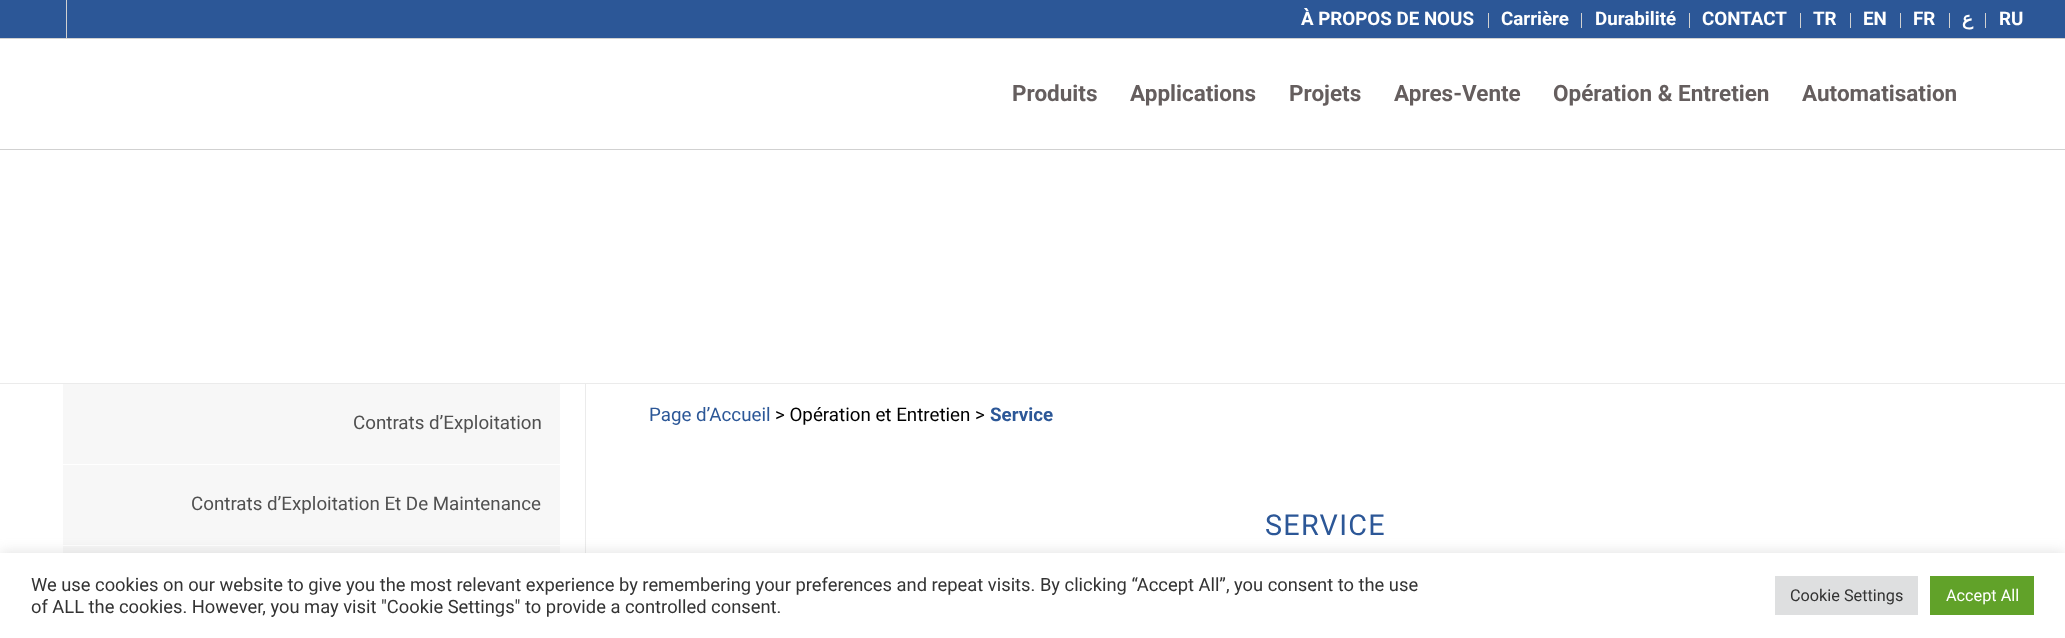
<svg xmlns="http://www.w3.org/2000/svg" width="2065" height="638">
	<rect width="100%" height="100%" fill="#FFFFFF" />
	<rect x="0" y="0" width="2065" height="38" fill="#2C5797" />
	<rect x="0" y="38" width="2065" height="1" fill="#D1D1D1" />
	<rect x="66" y="0" width="1" height="38" fill="#D1D1D1" />
	<rect x="1488" y="13" width="1" height="15" fill="#D1D1D1" />
	<text x="1301" y="25" font-family="Roboto" font-size="18.75" font-weight="700" fill="#FFFFFF">À PROPOS DE NOUS</text>
	<rect x="1581" y="13" width="1" height="15" fill="#D1D1D1" />
	<text x="1501" y="25" font-family="Roboto" font-size="18.75" font-weight="700" fill="#FFFFFF">Carrière</text>
	<rect x="1689" y="13" width="1" height="15" fill="#D1D1D1" />
	<text x="1595" y="25" font-family="Roboto" font-size="18.75" font-weight="700" fill="#FFFFFF">Durabilité</text>
	<rect x="1800" y="13" width="1" height="15" fill="#D1D1D1" />
	<text x="1702" y="25" font-family="Roboto" font-size="18.75" font-weight="700" fill="#FFFFFF">CONTACT</text>
	<rect x="1850" y="13" width="1" height="15" fill="#D1D1D1" />
	<text x="1813" y="25" font-family="Roboto" font-size="18.75" font-weight="700" fill="#FFFFFF">TR</text>
	<rect x="1900" y="13" width="1" height="15" fill="#D1D1D1" />
	<text x="1863" y="25" font-family="Roboto" font-size="18.75" font-weight="700" fill="#FFFFFF">EN</text>
	<rect x="1949" y="13" width="1" height="15" fill="#D1D1D1" />
	<text x="1913" y="25" font-family="Roboto" font-size="18.75" font-weight="700" fill="#FFFFFF">FR</text>
	<rect x="1985" y="13" width="1" height="15" fill="#D1D1D1" />
	<text x="1973" y="25" font-family="DejaVu Sans" font-size="18.75" font-weight="700" direction="rtl" fill="#FFFFFF">ع</text>
	<text x="1999" y="25" font-family="Roboto" font-size="18.75" font-weight="700" fill="#FFFFFF">RU</text>
	<rect x="0" y="149" width="2065" height="1" fill="#D1D1D1" />
	<g font-family="Roboto" font-size="22.5" font-weight="700" fill="#655E5E">
		<text x="1012" y="101">Produits</text>
		<text x="1130" y="101">Applications</text>
		<text x="1289" y="101">Projets</text>
		<text x="1394" y="101">Apres-Vente</text>
		<text x="1553" y="101">Opération &amp; Entretien</text>
		<text x="1802" y="101">Automatisation</text>
	</g>
	<rect x="0" y="383" width="2065" height="1" fill="#EBEBEB" />
	<rect x="585" y="384" width="1" height="169" fill="#EBEBEB" />
	<rect x="63" y="384" width="497" height="80" fill="#F7F7F7" />
	<text x="353" y="429" font-family="Roboto" font-size="18.75" fill="#505050">Contrats d’Exploitation</text>
	<rect x="63" y="465" width="497" height="80" fill="#F7F7F7" />
	<text x="191" y="510" font-family="Roboto" font-size="18.75" fill="#505050">Contrats d’Exploitation Et De Maintenance</text>
	<rect x="63" y="546" width="497" height="7" fill="#F7F7F7" />
	<text x="649" y="421" font-family="Roboto" font-size="18.75" fill="#2C5797">Page d’Accueil</text>
	<text x="775" y="421" font-family="Roboto" font-size="18.75" fill="#000000">&gt; Opération et Entretien &gt;</text>
	<text x="990" y="421" font-family="Roboto" font-size="18.75" font-weight="700" fill="#2C5797">Service</text>
	<text x="1265" y="535" font-family="Roboto" font-size="28.75" letter-spacing="1.25" fill="#2C5797">SERVICE</text>
	<rect x="0" y="551" width="2065" height="87" fill="#ACABAB" fill-opacity="0.3" filter="blur(6px)" />
	<rect x="0" y="553" width="2065" height="85" fill="#FFFFFF" />
	<g font-family="Roboto" font-size="18.33" fill="#333333">
		<text x="31" y="591">We use cookies on our website to give you the most relevant experience by remembering your preferences and repeat visits. By clicking “Accept All”, you consent to the use</text>
		<text x="31" y="613">of ALL the cookies. However, you may visit "Cookie Settings" to provide a controlled consent.</text>
	</g>
	<rect x="1775" y="576" width="143" height="39" fill="#DEDFE0" />
	<text x="1790" y="601" font-family="Roboto" font-size="16.25" fill="#333333">Cookie Settings</text>
	<rect x="1930" y="576" width="104" height="39" fill="#61A229" />
	<text x="1946" y="601" font-family="Roboto" font-size="16.25" fill="#FFFFFF">Accept All</text>
</svg>
